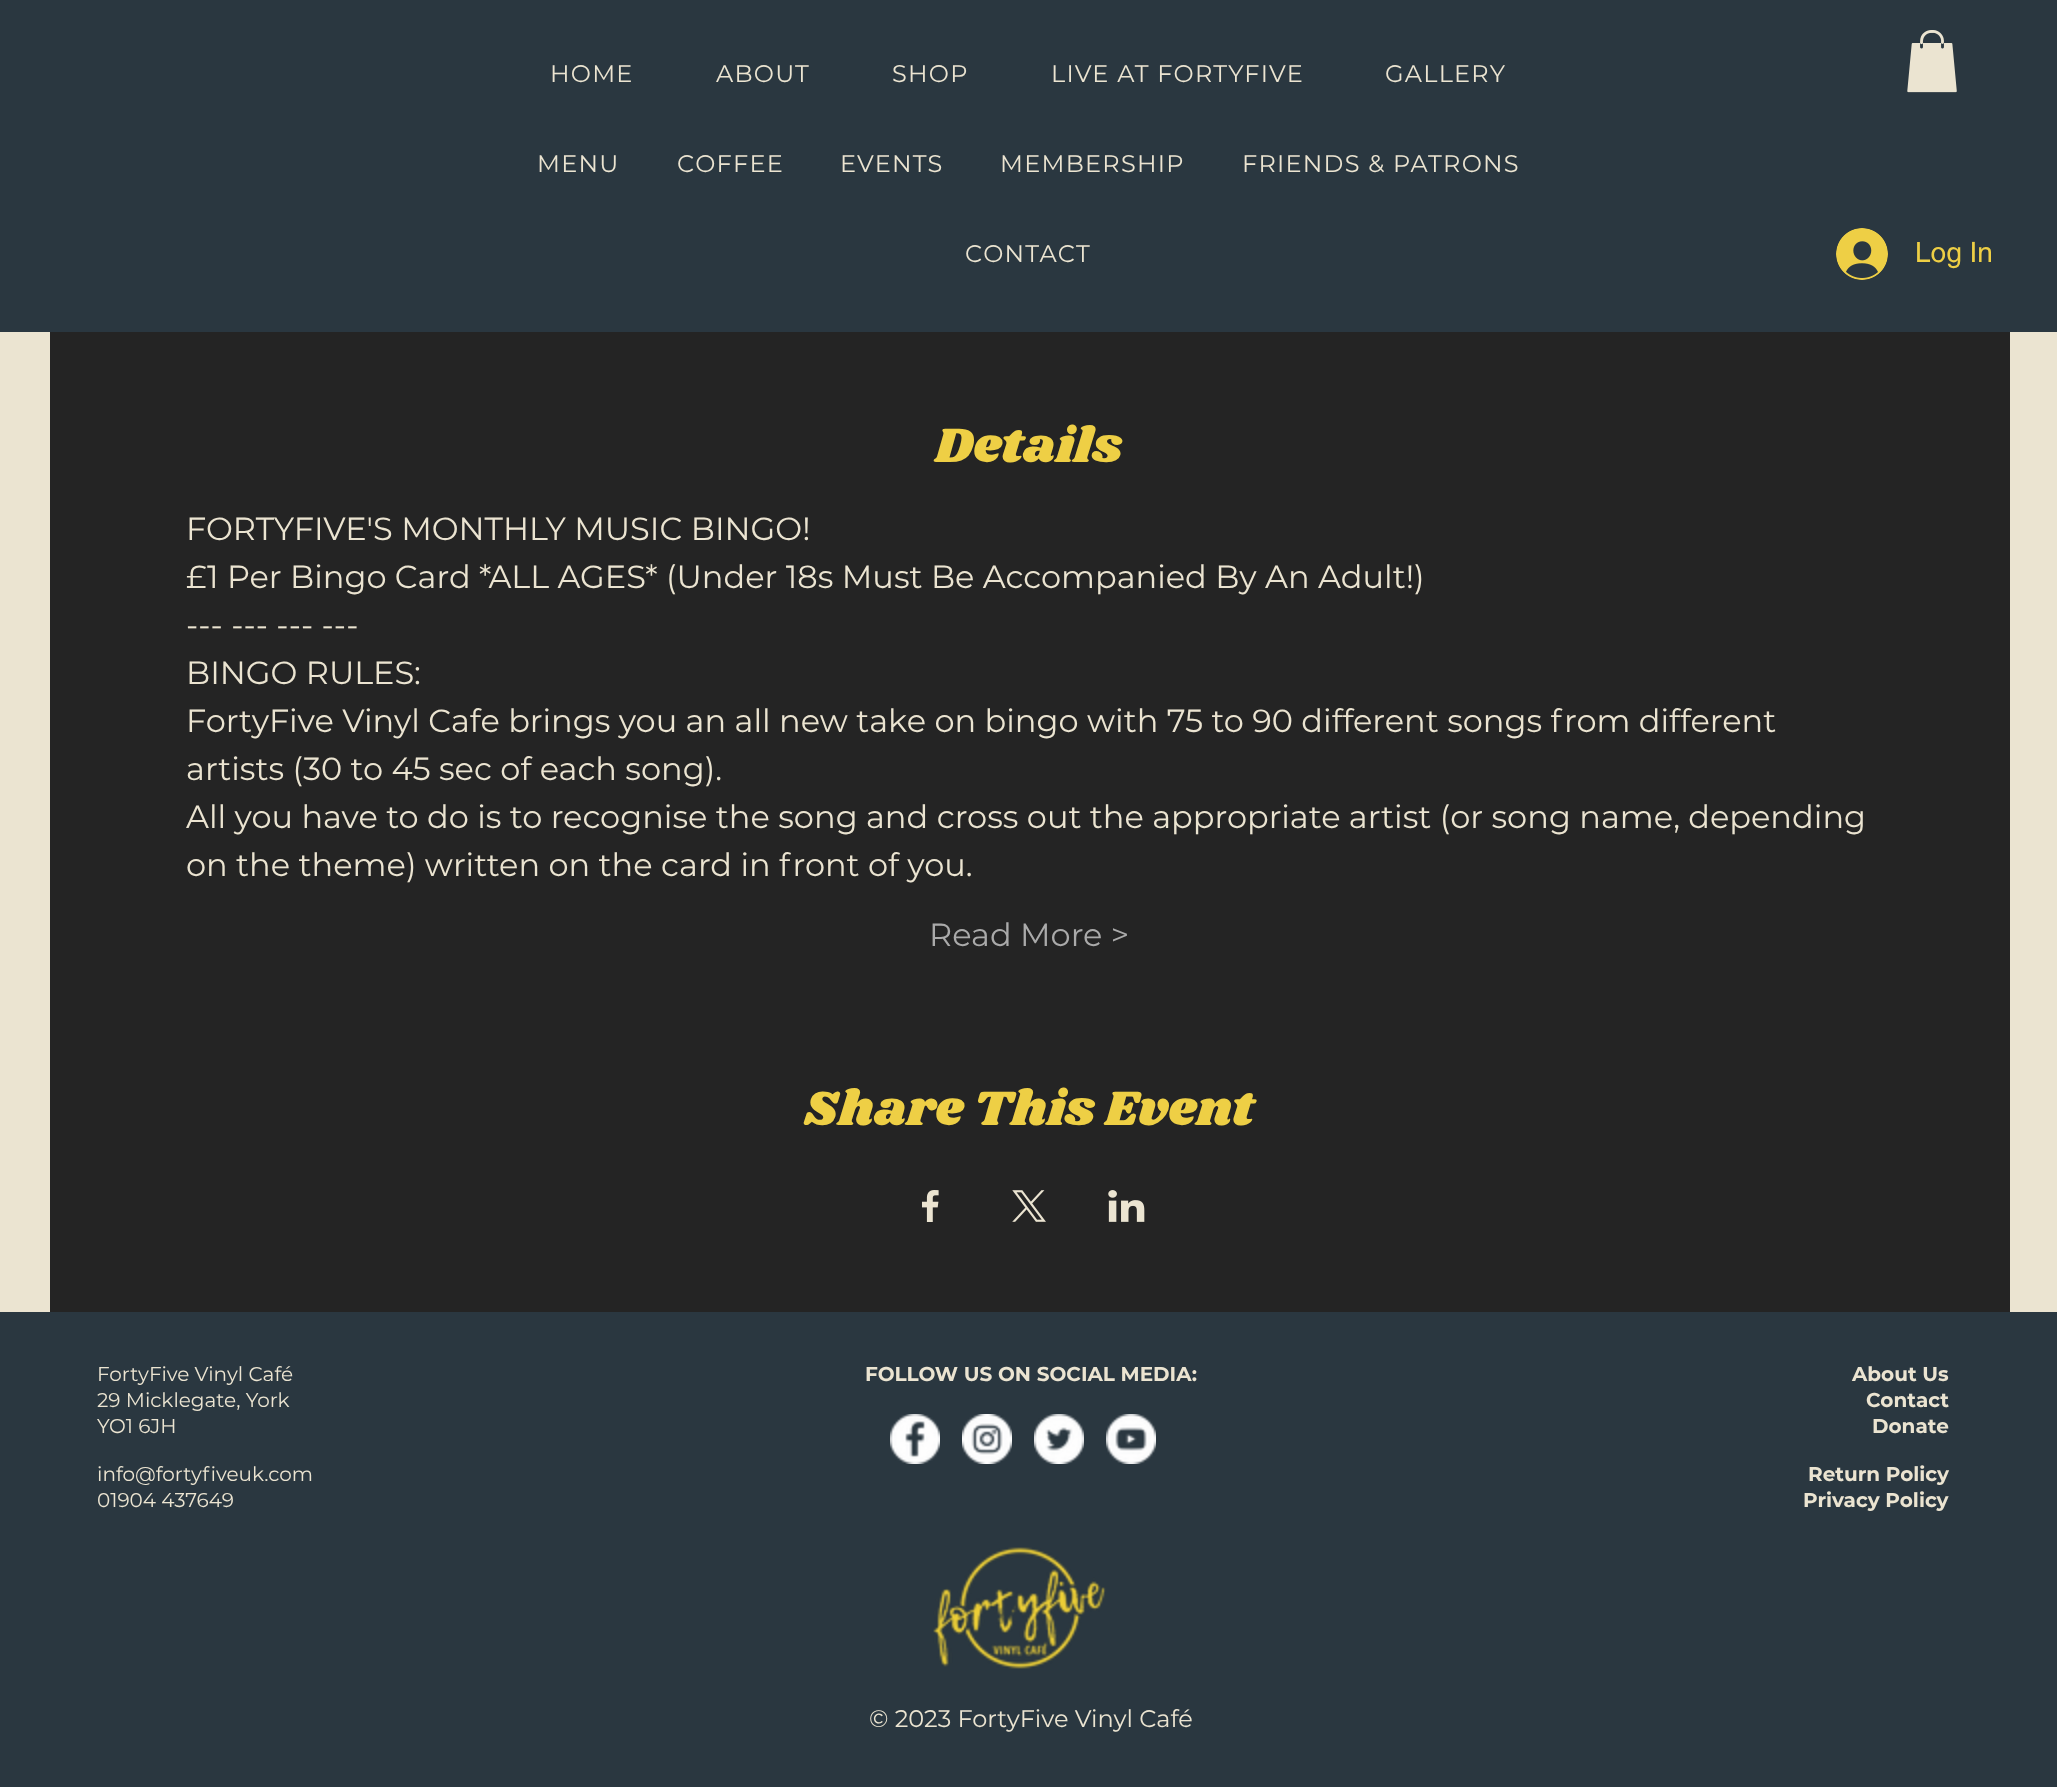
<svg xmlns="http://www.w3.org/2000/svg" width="2057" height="1787">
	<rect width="100%" height="100%" fill="#EBE4D1" />
	<rect x="0" y="0" width="2057" height="332" fill="#2A3740" />
	<g font-family="Montserrat" font-size="24" letter-spacing="1.25" fill="#EBE4D1">
		<text x="550" y="82">HOME</text>
		<text x="716" y="82">ABOUT</text>
		<text x="892" y="82">SHOP</text>
		<text x="1051" y="82">LIVE AT FORTYFIVE</text>
		<text x="1385" y="82">GALLERY</text>
		<text x="537" y="172">MENU</text>
		<text x="677" y="172">COFFEE</text>
		<text x="840" y="172">EVENTS</text>
		<text x="1000" y="172">MEMBERSHIP</text>
		<text x="1242" y="172">FRIENDS &amp; PATRONS</text>
		<text x="965" y="262">CONTACT</text>
	</g>
	<image x="1907" y="30" width="50" height="63" href="assets/img1.png" />
	<image x="1836" y="228" width="52" height="52" href="assets/img2.png" />
	<text x="1915" y="262" font-family="helvetica" font-size="28" fill="#EECF45">Log In</text>
	<rect x="50" y="332" width="1960" height="980" fill="#242424" />
	<text x="935" y="462" font-family="Shrikhand" font-size="50" fill="#EECF45">Details</text>
	<g font-family="Montserrat" font-size="32" fill="#EBE4D1">
		<text x="186" y="540">FORTYFIVE'S MONTHLY MUSIC BINGO!</text>
		<text x="186" y="588">£1 Per Bingo Card *ALL AGES* (Under 18s Must Be Accompanied By An Adult!)</text>
		<text x="186" y="636">--- --- --- ---</text>
		<text x="186" y="684">BINGO RULES:</text>
		<text x="186" y="732">FortyFive Vinyl Cafe brings you an all new take on bingo with 75 to 90 different songs from different</text>
		<text x="186" y="780">artists (30 to 45 sec of each song).</text>
		<text x="186" y="828">All you have to do is to recognise the song and cross out the appropriate artist (or song name, depending</text>
		<text x="186" y="876">on the theme) written on the card in front of you.</text>
	</g>
	<text x="929" y="946" font-family="Montserrat" font-size="32" fill="#AAAAAA">Read More &gt;</text>
	<text x="804" y="1125" font-family="Shrikhand" font-size="50" fill="#EECF45">Share This Event</text>
	<image x="922" y="1190" width="17" height="32" href="assets/img3.png" />
	<image x="1012" y="1190" width="34" height="32" href="assets/img4.png" />
	<image x="1108" y="1190" width="37" height="32" href="assets/img5.png" />
	<rect x="0" y="1312" width="2057" height="475" fill="#2A3740" />
	<g font-family="Montserrat" font-size="20" fill="#EBE4D1">
		<text x="97" y="1381">FortyFive Vinyl Café</text>
		<text x="97" y="1407">29 Micklegate, York</text>
		<text x="97" y="1433">YO1 6JH</text>
		<text x="97" y="1481">info@fortyfiveuk.com</text>
		<text x="97" y="1507">01904 437649</text>
	</g>
	<g font-family="Montserrat" font-size="20" font-weight="700" fill="#EBE4D1">
		<text x="865" y="1381">FOLLOW US ON SOCIAL MEDIA:</text>
		<text x="1852" y="1381">About Us</text>
		<text x="1866" y="1407">Contact</text>
		<text x="1872" y="1433">Donate</text>
		<text x="1808" y="1481">Return Policy</text>
		<text x="1803" y="1507">Privacy Policy</text>
	</g>
	<image x="890" y="1414" width="50" height="50" href="assets/img6.png" />
	<image x="962" y="1414" width="50" height="50" href="assets/img7.png" />
	<image x="1034" y="1414" width="50" height="50" href="assets/img8.png" />
	<image x="1106" y="1414" width="50" height="50" href="assets/img9.png" />
	<image x="933" y="1547" width="173" height="122" href="assets/img10.png" />
	<text x="869" y="1727" font-family="Montserrat" font-size="24" fill="#EBE4D1">© 2023 FortyFive Vinyl Café</text>
</svg>
